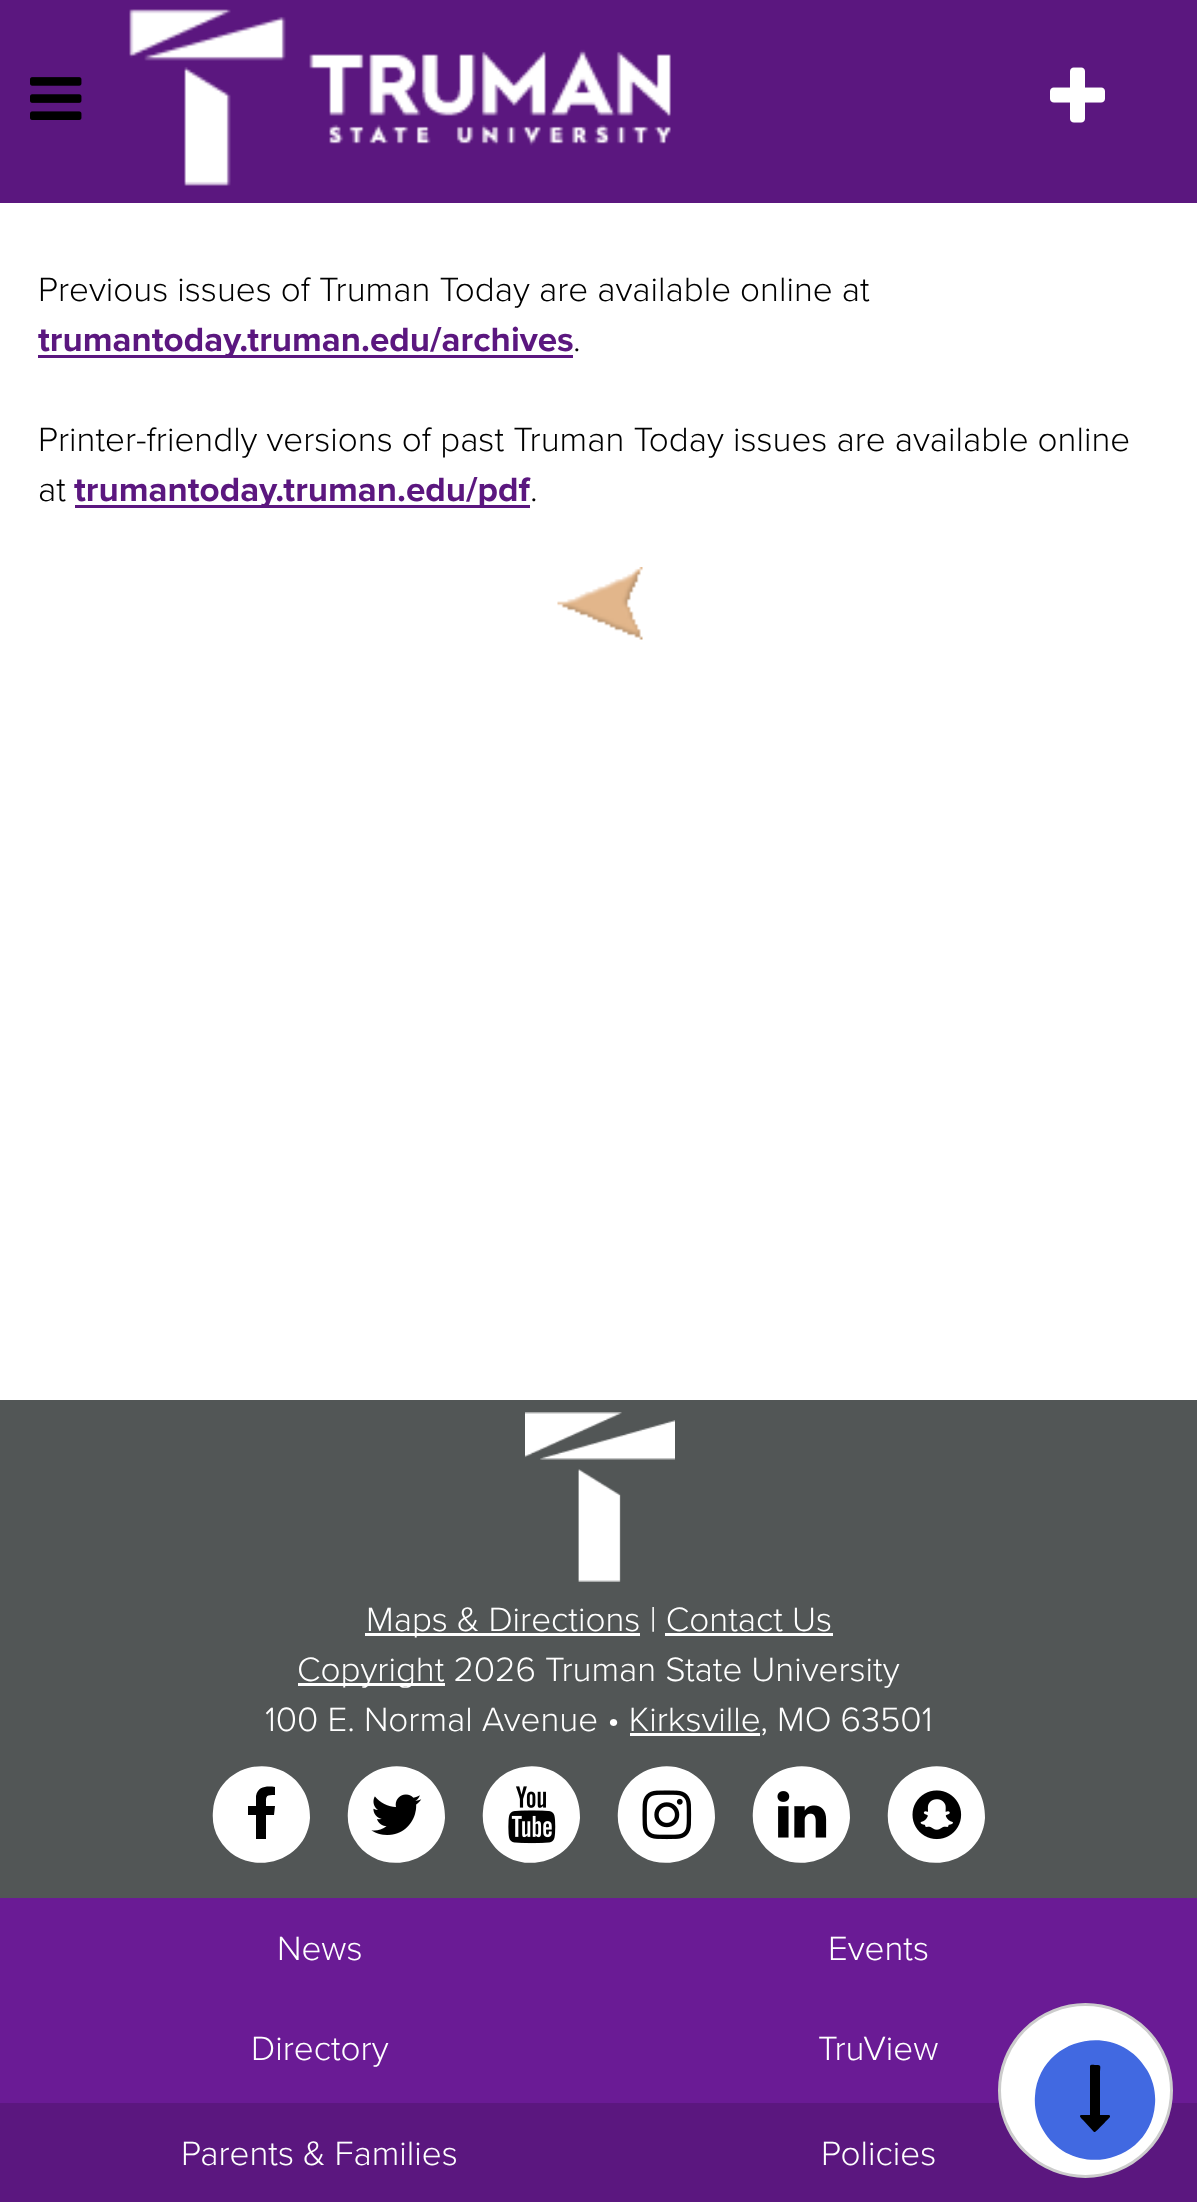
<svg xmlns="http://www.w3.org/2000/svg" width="1197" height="2202">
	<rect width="100%" height="100%" fill="#FFFFFF" />
	<rect x="0" y="0" width="1197" height="203" fill="#5B177F" />
	<image x="30" y="77" width="52" height="43" href="assets/img1.png" />
	<image x="129" y="9" width="542" height="177" href="assets/img2.png" />
	<image x="1050" y="67" width="55" height="56" href="assets/img3.png" />
	<text x="38" y="301" font-family="Proxima Nova" font-size="35" font-weight="300" fill="#000000">Previous issues of Truman Today are available online at</text>
	<rect x="38" y="355" width="535" height="3" fill="#5B177F" />
	<text x="38" y="351" font-family="Proxima Nova" font-size="35" font-weight="700" fill="#5B177F">trumantoday.truman.edu/archives</text>
	<g font-family="Proxima Nova" font-size="35" font-weight="300" fill="#000000">
		<text x="573" y="351">.</text>
		<text x="38" y="451">Printer-friendly versions of past Truman Today issues are available online</text>
		<text x="38" y="501">at</text>
	</g>
	<rect x="75" y="505" width="455" height="3" fill="#5B177F" />
	<text x="74" y="501" font-family="Proxima Nova" font-size="35" font-weight="700" fill="#5B177F">trumantoday.truman.edu/pdf</text>
	<text x="530" y="501" font-family="Proxima Nova" font-size="35" font-weight="300" fill="#000000">.</text>
	<image x="557" y="567" width="86" height="73" href="assets/img4.png" />
	<rect x="0" y="1400" width="1197" height="498" fill="#525656" />
	<image x="525" y="1412" width="150" height="170" href="assets/img5.png" />
	<rect x="365" y="1633" width="275" height="3" fill="#FFFFFF" />
	<text x="366" y="1631" font-family="Proxima Nova" font-size="35" font-weight="300" fill="#FFFFFF">Maps &amp; Directions | Contact Us</text>
	<rect x="665" y="1633" width="168" height="3" fill="#FFFFFF" />
	<rect x="298" y="1683" width="147" height="3" fill="#FFFFFF" />
	<g font-family="Proxima Nova" font-size="35" font-weight="300" fill="#FFFFFF">
		<text x="297" y="1681">Copyright 2026 Truman State University</text>
		<text x="265" y="1731">100 E. Normal Avenue • Kirksville, MO 63501</text>
	</g>
	<rect x="630" y="1733" width="130" height="3" fill="#FFFFFF" />
	<path d="M303 1790C308 1798 310 1808 310 1818C307 1865 243 1880 219 1839C214 1831 212 1821 213 1811C216 1764 279 1749 303 1790Z" fill="#FFFFFF" />
	<path d="M275 1787V1795C265 1795 266 1796 266 1806H275L274 1815H266V1839H256V1815H248V1806H256V1796C258 1786 267 1786 275 1787Z" fill="#000000" />
	<path d="M438 1790C443 1798 445 1808 445 1818C442 1865 378 1880 354 1839C349 1831 347 1821 348 1811C351 1764 414 1749 438 1790Z" fill="#FFFFFF" />
	<image x="371" y="1794" width="51" height="41" href="assets/img6.png" />
	<path d="M573 1790C578 1798 580 1808 580 1818C577 1865 513 1880 489 1839C484 1831 482 1821 483 1811C486 1764 549 1749 573 1790Z" fill="#FFFFFF" />
	<image x="508" y="1786" width="48" height="58" href="assets/img7.png" />
	<path d="M708 1790C713 1798 715 1808 715 1818C712 1865 648 1880 624 1839C619 1831 617 1821 618 1811C621 1764 684 1749 708 1790Z" fill="#FFFFFF" />
	<image x="642" y="1790" width="50" height="50" href="assets/img8.png" />
	<path d="M843 1790C848 1798 850 1808 850 1818C847 1865 783 1880 759 1839C754 1831 752 1821 753 1811C756 1764 819 1749 843 1790Z" fill="#FFFFFF" />
	<image x="777" y="1791" width="50" height="47" href="assets/img9.png" />
	<path d="M978 1790C983 1798 985 1808 985 1818C982 1865 918 1880 894 1839C889 1831 887 1821 888 1811C891 1764 954 1749 978 1790Z" fill="#FFFFFF" />
	<image x="912" y="1790" width="50" height="50" href="assets/img10.png" />
	<rect x="0" y="1898" width="1197" height="205" fill="#6A1B95" />
	<g font-family="Proxima Nova" font-size="35" font-weight="300" fill="#FFFFFF">
		<text x="277" y="1960">News</text>
		<text x="828" y="1960">Events</text>
		<text x="251" y="2060">Directory</text>
		<text x="818" y="2060">TruView</text>
	</g>
	<rect x="0" y="2103" width="1197" height="99" fill="#5B177F" />
	<g font-family="Proxima Nova" font-size="35" font-weight="300" fill="#FFFFFF">
		<text x="181" y="2165">Parents &amp; Families</text>
		<text x="821" y="2165">Policies</text>
	</g>
	<circle cx="1085.5" cy="2090.5" r="86" fill="#FFFFFF" stroke="#CCCCCC" stroke-width="3" />
	<path d="M1147 2070C1153 2080 1156 2092 1155 2104C1151 2163 1073 2181 1043 2130C1037 2120 1034 2108 1035 2096C1039 2037 1117 2019 1147 2070Z" fill="#4169E1" />
	<path d="M1109 2115C1110 2115 1110 2116 1110 2117C1108 2119 1096 2132 1095 2132H1094L1083 2120C1080 2117 1078 2115 1083 2115H1090V2066C1090 2064 1095 2065 1096 2065C1102 2065 1100 2066 1100 2074V2115Z" fill="#000000" />
</svg>
